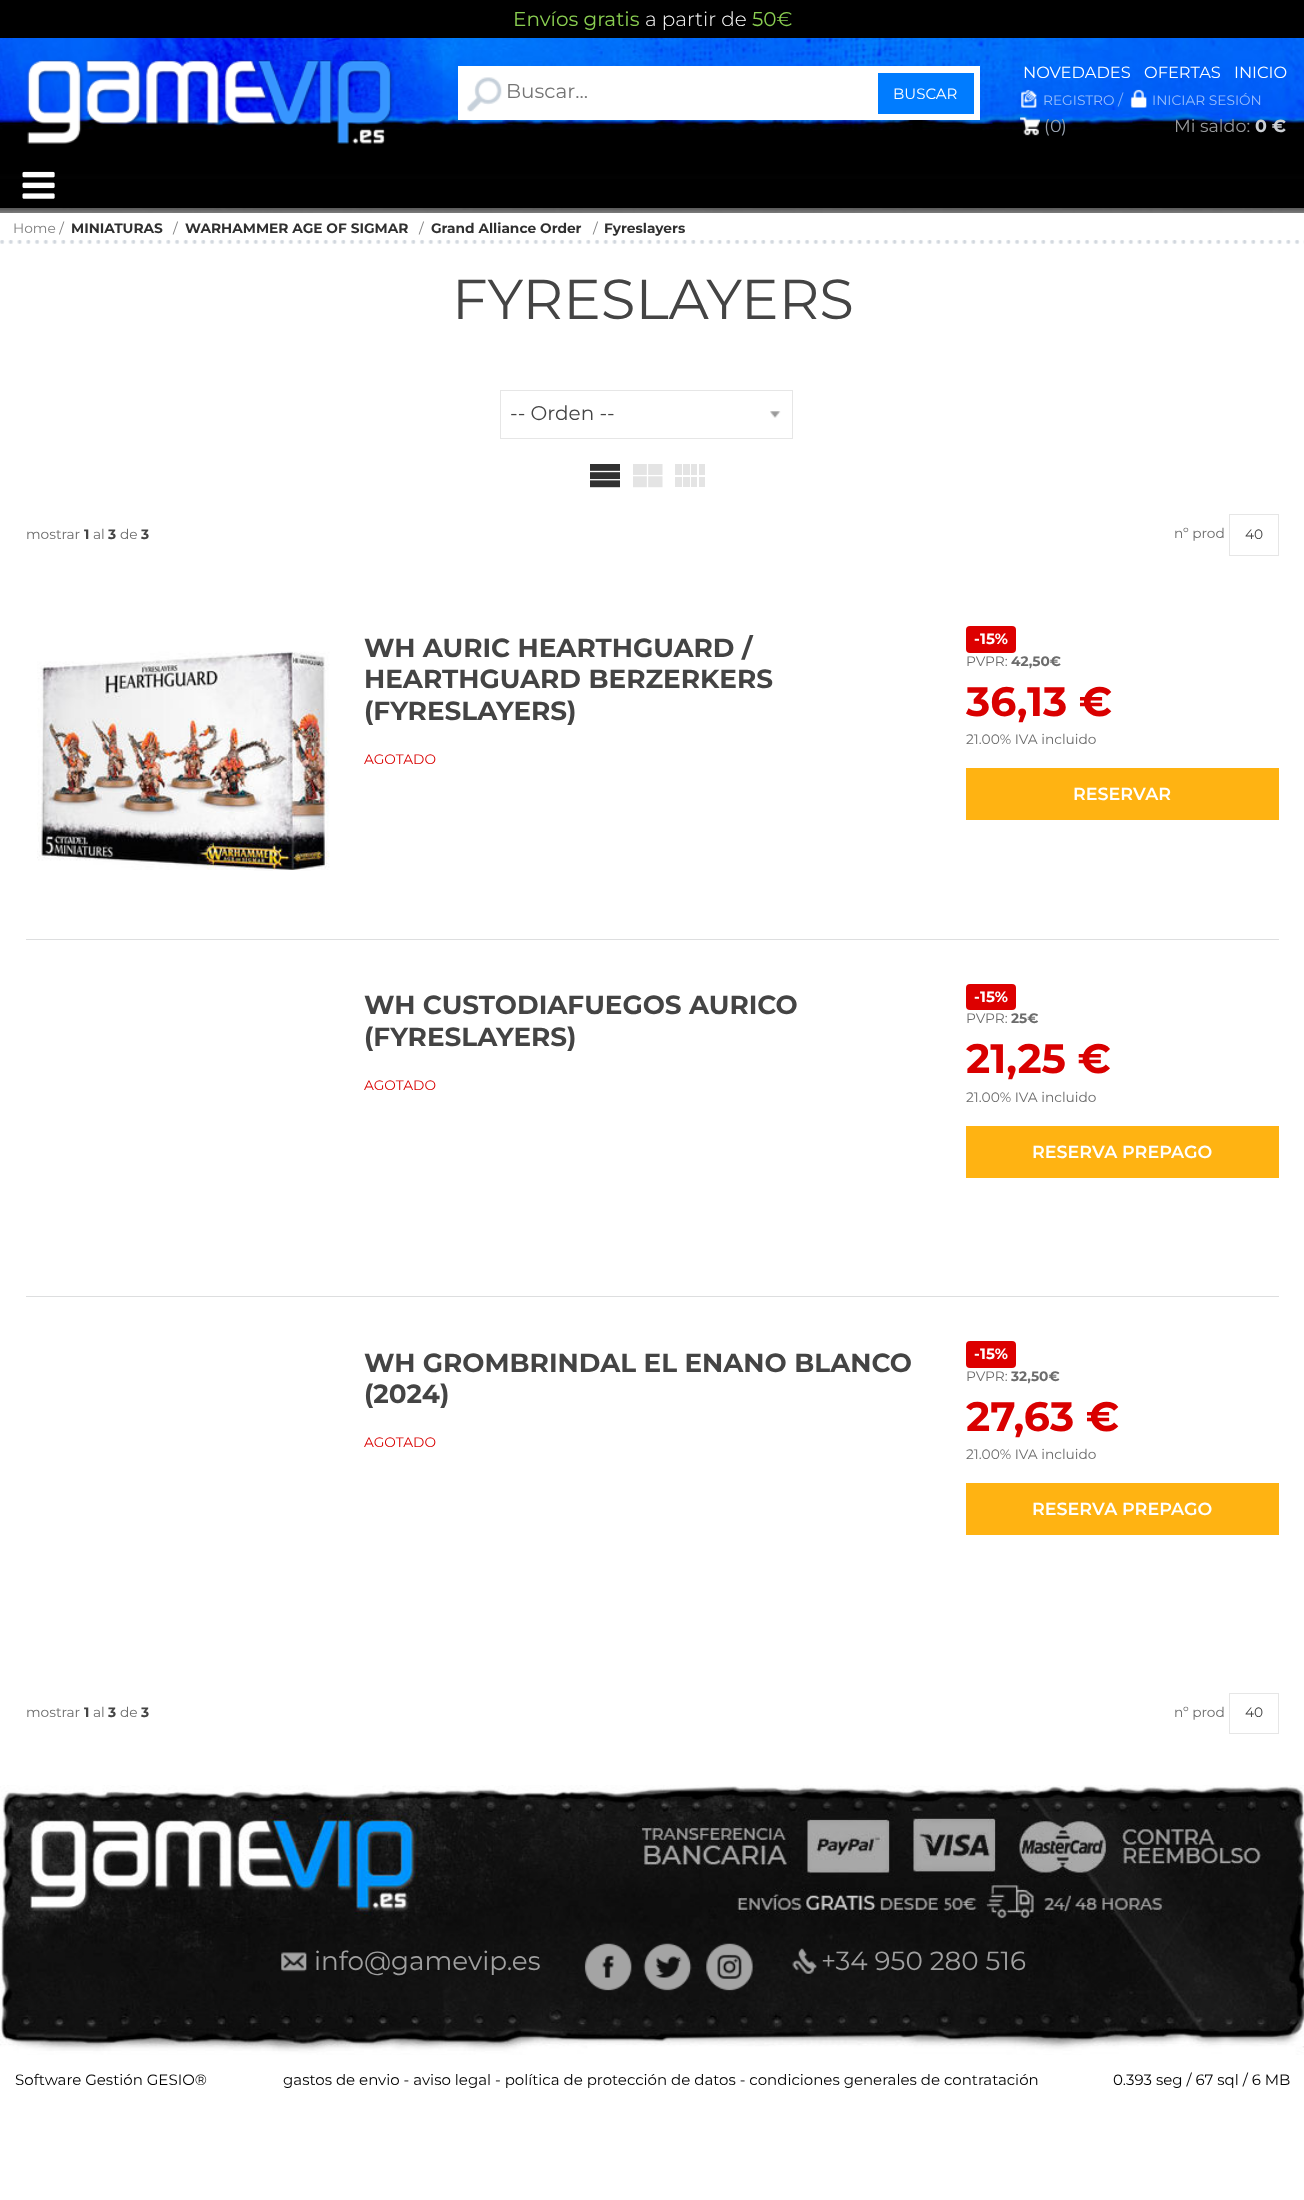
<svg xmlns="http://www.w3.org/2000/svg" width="1304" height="2200">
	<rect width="100%" height="100%" fill="#FFFFFF" />
	<image x="0" y="38" width="1304" height="175" href="assets/img1.png" />
	<rect x="0" y="0" width="1304" height="38" fill="#000000" />
	<text x="513" y="26" font-family="Montserrat" font-size="20" fill="#8ACE51">Envíos gratis</text>
	<text x="645" y="26" font-family="Montserrat" font-size="20" font-weight="300" fill="#FFFFFF">a partir de</text>
	<text x="752" y="26" font-family="Montserrat" font-size="20" fill="#8ACE51">50€</text>
	<image x="27" y="60" width="367" height="84" href="assets/img2.png" />
	<g font-family="Montserrat" font-size="16.25" fill="#FFFFFF">
		<text x="1023" y="78">NOVEDADES</text>
		<text x="1144" y="78">OFERTAS</text>
		<text x="1234" y="78">INICIO</text>
	</g>
	<rect x="458" y="66" width="522" height="54" fill="#FFFFFF" />
	<image x="467" y="77" width="35" height="35" href="assets/img3.png" />
	<text x="506" y="98" font-family="Montserrat" font-size="20" fill="#757575">Buscar...</text>
	<rect x="878" y="73" width="96" height="41" fill="#007CFF" />
	<text x="893" y="99" font-family="Montserrat" font-size="15" fill="#FFFFFF">BUSCAR</text>
	<image x="1021" y="89" width="16" height="19" href="assets/img4.png" />
	<text x="1043" y="105" font-family="Montserrat" font-size="13.75" fill="#99BFFC">REGISTRO</text>
	<text x="1118" y="105" font-family="Montserrat" font-size="15" fill="#80AFFB">/</text>
	<image x="1130" y="89" width="17" height="19" href="assets/img5.png" />
	<text x="1152" y="105" font-family="Montserrat" font-size="13.75" fill="#99BFFC">INICIAR SESIÓN</text>
	<image x="1020" y="117" width="20" height="19" href="assets/img6.png" />
	<text x="1044" y="132" font-family="Montserrat" font-size="17.5" fill="#99A0A9">(</text>
	<g font-family="Montserrat" font-size="17.5" fill="#99A3B1">
		<text x="1050" y="132">0</text>
		<text x="1061" y="132">)</text>
	</g>
	<text x="1174" y="132" font-family="Montserrat" font-size="17.5" fill="#999B9E">Mi saldo:</text>
	<text x="1255" y="132" font-family="Montserrat" font-size="17.5" font-weight="700" fill="#CCCFD4">0 €</text>
	<rect x="0" y="179" width="1304" height="29" fill="#000000" />
	<image x="22" y="171" width="33" height="28" href="assets/img7.png" />
	<image x="0" y="240" width="1304" height="4" href="assets/img8.png" />
	<text x="13" y="233" font-family="Montserrat" font-size="13.75" fill="#7E7E7E">Home /</text>
	<text x="71" y="233" font-family="Montserrat" font-size="13.75" font-weight="700" fill="#303030">MINIATURAS</text>
	<text x="173" y="233" font-family="Montserrat" font-size="13.75" fill="#7E7E7E">/</text>
	<text x="185" y="233" font-family="Montserrat" font-size="13.75" font-weight="700" fill="#303030">WARHAMMER AGE OF SIGMAR</text>
	<text x="419" y="233" font-family="Montserrat" font-size="13.75" fill="#7E7E7E">/</text>
	<text x="431" y="233" font-family="Montserrat" font-size="13.75" font-weight="700" fill="#303030">Grand Alliance Order</text>
	<text x="593" y="233" font-family="Montserrat" font-size="13.75" fill="#7E7E7E">/</text>
	<text x="604" y="233" font-family="Montserrat" font-size="13.75" font-weight="700" fill="#303030">Fyreslayers</text>
	<text x="452" y="319" font-family="Montserrat" font-size="56.25" fill="#444444">FYRESLAYERS</text>
	<image x="770" y="411" width="11" height="7" href="assets/img9.png" />
	<rect x="500.5" y="390.5" width="292" height="48" fill="none" stroke="#E6E6E6" />
	<text x="510" y="420" font-family="Montserrat" font-size="20" fill="#444444">-- Orden --</text>
	<image x="590" y="464" width="30" height="24" href="assets/img10.png" />
	<image x="633" y="464" width="30" height="24" href="assets/img11.png" />
	<image x="675" y="464" width="30" height="23" href="assets/img12.png" />
	<text x="26" y="539" font-family="Montserrat" font-size="13.75" fill="#6C6C6C">mostrar</text>
	<text x="84" y="539" font-family="Montserrat" font-size="13.75" font-weight="700" fill="#444444">1</text>
	<text x="93" y="539" font-family="Montserrat" font-size="13.75" fill="#6C6C6C">al</text>
	<text x="108" y="539" font-family="Montserrat" font-size="13.75" font-weight="700" fill="#444444">3</text>
	<text x="120" y="539" font-family="Montserrat" font-size="13.75" fill="#6C6C6C">de</text>
	<text x="141" y="539" font-family="Montserrat" font-size="13.75" font-weight="700" fill="#444444">3</text>
	<text x="1174" y="538" font-family="Montserrat" font-size="13.75" fill="#6C6C6C">nº prod</text>
	<rect x="1229.5" y="514.5" width="49" height="41" fill="none" stroke="#E6E6E6" />
	<text x="1245" y="539" font-family="Montserrat" font-size="13.75" fill="#444444">40</text>
	<rect x="26" y="939" width="1253" height="1" fill="#DDDEDF" />
	<image x="37" y="651" width="293" height="220" href="assets/img13.png" />
	<g font-family="Montserrat" font-size="26.25" font-weight="700" fill="#444444">
		<text x="364" y="657">WH AURIC HEARTHGUARD /</text>
		<text x="364" y="688">HEARTHGUARD BERZERKERS</text>
		<text x="364" y="720">(FYRESLAYERS)</text>
	</g>
	<text x="364" y="764" font-family="Montserrat" font-size="13.75" fill="#D90000">AGOTADO</text>
	<rect x="966" y="626" width="50" height="27" rx="4" fill="#DD0000" />
	<g font-family="Montserrat" font-size="15" font-weight="700" fill="#FFFFFF">
		<text x="974" y="644">-</text>
		<text x="980" y="644">15%</text>
	</g>
	<text x="966" y="666" font-family="Montserrat" font-size="13.75" fill="#6C6C6C">PVPR:</text>
	<text x="1011" y="666" font-family="Montserrat" font-size="13.75" font-weight="700" fill="#6C6C6C">42,50€</text>
	<text x="966" y="716" font-family="Montserrat" font-size="41" font-weight="700" fill="#D90000">36,13 €</text>
	<text x="966" y="744" font-family="Montserrat" font-size="13.75" fill="#6C6C6C">21.00% IVA incluido</text>
	<rect x="966" y="768" width="313" height="52" fill="#FFB312" />
	<text x="1073" y="800" font-family="Montserrat" font-size="17.5" font-weight="600" fill="#FFFFFF">RESERVAR</text>
	<rect x="26" y="1296" width="1253" height="1" fill="#DDDEDF" />
	<g font-family="Montserrat" font-size="26.25" font-weight="700" fill="#444444">
		<text x="364" y="1014">WH CUSTODIAFUEGOS AURICO</text>
		<text x="364" y="1046">(FYRESLAYERS)</text>
	</g>
	<text x="364" y="1090" font-family="Montserrat" font-size="13.75" fill="#D90000">AGOTADO</text>
	<rect x="966" y="984" width="50" height="26" rx="4" fill="#DD0000" />
	<g font-family="Montserrat" font-size="15" font-weight="700" fill="#FFFFFF">
		<text x="974" y="1002">-</text>
		<text x="980" y="1002">15%</text>
	</g>
	<text x="966" y="1023" font-family="Montserrat" font-size="13.75" fill="#6C6C6C">PVPR:</text>
	<text x="1011" y="1023" font-family="Montserrat" font-size="13.75" font-weight="700" fill="#6C6C6C">25€</text>
	<text x="966" y="1073" font-family="Montserrat" font-size="41" font-weight="700" fill="#D90000">21,25 €</text>
	<text x="966" y="1102" font-family="Montserrat" font-size="13.75" fill="#6C6C6C">21.00% IVA incluido</text>
	<rect x="966" y="1126" width="313" height="52" fill="#FFB312" />
	<text x="1032" y="1158" font-family="Montserrat" font-size="17.5" font-weight="600" fill="#FFFFFF">RESERVA PREPAGO</text>
	<g font-family="Montserrat" font-size="26.25" font-weight="700" fill="#444444">
		<text x="364" y="1372">WH GROMBRINDAL EL ENANO BLANCO</text>
		<text x="364" y="1403">(2024)</text>
	</g>
	<text x="364" y="1447" font-family="Montserrat" font-size="13.75" fill="#D90000">AGOTADO</text>
	<rect x="966" y="1341" width="50" height="27" rx="4" fill="#DD0000" />
	<g font-family="Montserrat" font-size="15" font-weight="700" fill="#FFFFFF">
		<text x="974" y="1359">-</text>
		<text x="980" y="1359">15%</text>
	</g>
	<text x="966" y="1381" font-family="Montserrat" font-size="13.75" fill="#6C6C6C">PVPR:</text>
	<text x="1011" y="1381" font-family="Montserrat" font-size="13.75" font-weight="700" fill="#6C6C6C">32,50€</text>
	<text x="966" y="1431" font-family="Montserrat" font-size="41" font-weight="700" fill="#D90000">27,63 €</text>
	<text x="966" y="1459" font-family="Montserrat" font-size="13.75" fill="#6C6C6C">21.00% IVA incluido</text>
	<rect x="966" y="1483" width="313" height="52" fill="#FFB312" />
	<text x="1032" y="1515" font-family="Montserrat" font-size="17.5" font-weight="600" fill="#FFFFFF">RESERVA PREPAGO</text>
	<text x="26" y="1717" font-family="Montserrat" font-size="13.75" fill="#6C6C6C">mostrar</text>
	<text x="84" y="1717" font-family="Montserrat" font-size="13.75" font-weight="700" fill="#444444">1</text>
	<text x="93" y="1717" font-family="Montserrat" font-size="13.75" fill="#6C6C6C">al</text>
	<text x="108" y="1717" font-family="Montserrat" font-size="13.75" font-weight="700" fill="#444444">3</text>
	<text x="120" y="1717" font-family="Montserrat" font-size="13.75" fill="#6C6C6C">de</text>
	<text x="141" y="1717" font-family="Montserrat" font-size="13.75" font-weight="700" fill="#444444">3</text>
	<text x="1174" y="1717" font-family="Montserrat" font-size="13.75" fill="#6C6C6C">nº prod</text>
	<rect x="1229.5" y="1693.5" width="49" height="40" fill="none" stroke="#E6E6E6" />
	<text x="1245" y="1717" font-family="Montserrat" font-size="13.75" fill="#444444">40</text>
	<image x="0" y="1785" width="1304" height="270" href="assets/img14.png" />
	<image x="281" y="1952" width="26" height="20" href="assets/img15.png" />
	<text x="314" y="1970" font-family="Montserrat" font-size="26.25" fill="#A0A0A0">info@gamevip.es</text>
	<image x="584" y="1943" width="48" height="48" href="assets/img16.png" />
	<image x="643" y="1943" width="49" height="48" href="assets/img17.png" />
	<image x="706" y="1943" width="47" height="48" href="assets/img18.png" />
	<image x="792" y="1948" width="25" height="26" href="assets/img19.png" />
	<text x="821" y="1970" font-family="Montserrat" font-size="26.25" fill="#A0A0A0">+34 950 280 516</text>
	<g font-family="Montserrat" font-size="15" fill="#000000">
		<text x="15" y="2085">Software Gestión GESIO®</text>
		<text x="283" y="2085">gastos de envio - aviso legal - política de protección de datos - condiciones generales de contratación</text>
		<text x="1113" y="2085">0.393 seg / 67 sql / 6 MB</text>
	</g>
</svg>
